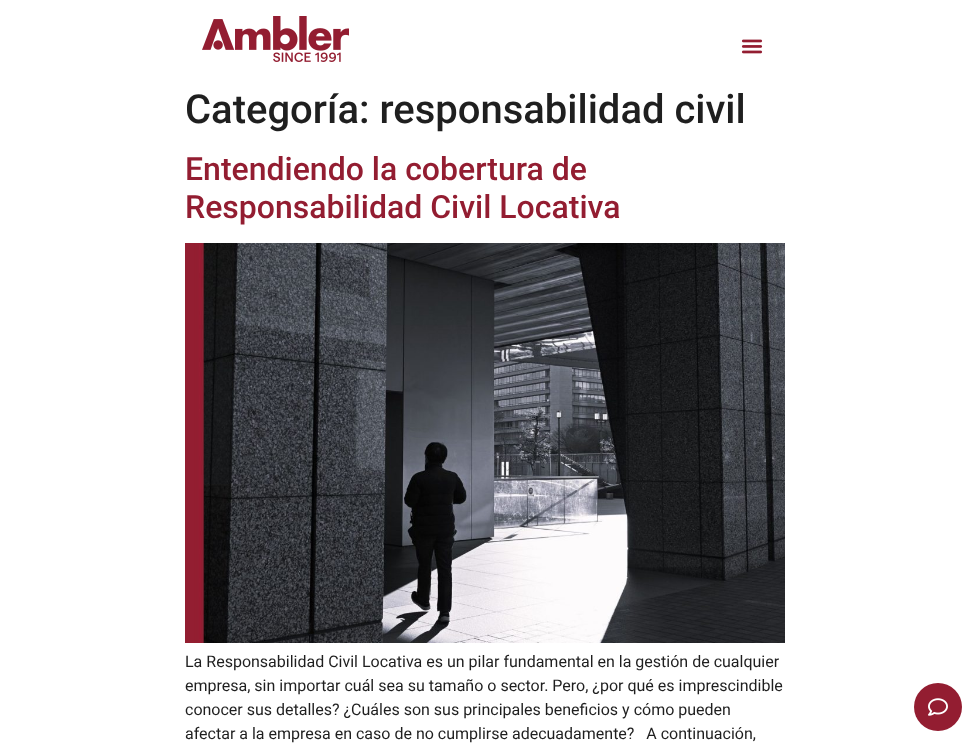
<svg xmlns="http://www.w3.org/2000/svg" width="970" height="756">
	<rect width="100%" height="100%" fill="#FFFFFF" />
	<image x="202" y="16" width="147" height="46" href="assets/img1.png" />
	<image x="741" y="39" width="22" height="15" href="assets/img2.png" />
	<text x="185" y="123" font-family="Roboto" font-size="40" font-weight="500" fill="#1F1F1F">Categoría: responsabilidad civil</text>
	<g font-family="Roboto" font-size="32" font-weight="500" fill="#931D31">
		<text x="185" y="180">Entendiendo la cobertura de</text>
		<text x="185" y="218">Responsabilidad Civil Locativa</text>
	</g>
	<image x="185" y="243" width="600" height="400" href="assets/img3.png" />
	<g font-family="Roboto" font-size="16" fill="#1F1F1F">
		<text x="185" y="667">La Responsabilidad Civil Locativa es un pilar fundamental en la gestión de cualquier</text>
		<text x="185" y="691">empresa, sin importar cuál sea su tamaño o sector. Pero, ¿por qué es imprescindible</text>
		<text x="185" y="715">conocer sus detalles? ¿Cuáles son sus principales beneficios y cómo pueden</text>
		<text x="185" y="739" xml:space="preserve">afectar a la empresa en caso de no cumplirse adecuadamente?   A continuación,</text>
	</g>
	<circle cx="938" cy="707" r="24" fill="#931D31" />
	<image x="928" y="698" width="20" height="18" href="assets/img4.png" />
</svg>
